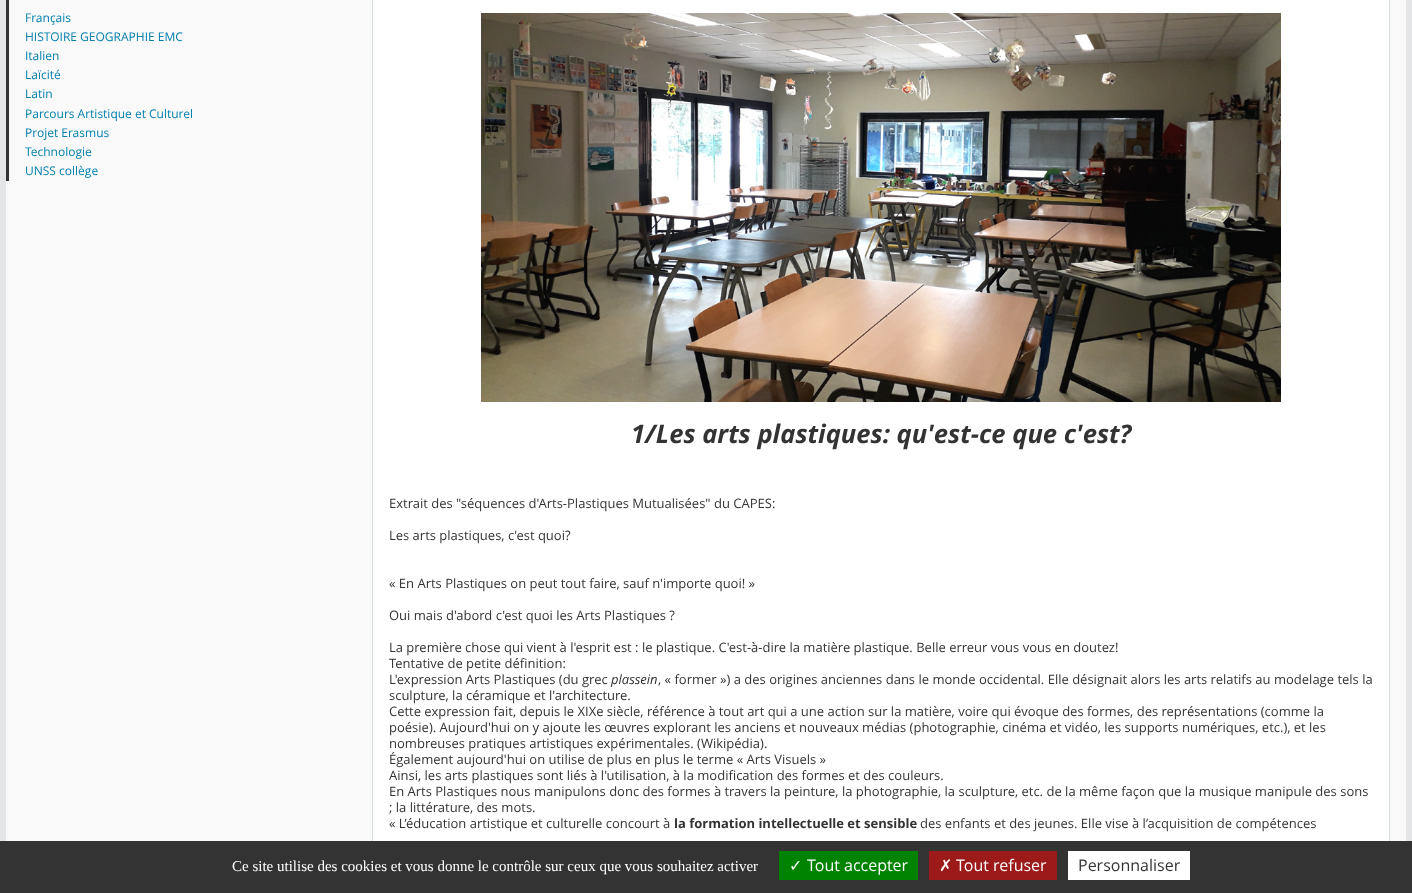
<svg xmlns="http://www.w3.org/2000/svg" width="1412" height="893">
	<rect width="100%" height="100%" fill="#E4E5E7" />
	<rect x="6" y="0" width="1400" height="841" fill="#F9F9F9" />
	<rect x="6" y="0" width="3" height="181" fill="#333333" />
	<g font-family="Open Sans" font-size="12" fill="#017FAD">
		<text x="25" y="22">Français</text>
		<text x="25" y="41">HISTOIRE GEOGRAPHIE EMC</text>
		<text x="25" y="60">Italien</text>
		<text x="25" y="79">Laïcité</text>
		<text x="25" y="98">Latin</text>
		<text x="25" y="118">Parcours Artistique et Culturel</text>
		<text x="25" y="137">Projet Erasmus</text>
		<text x="25" y="156">Technologie</text>
		<text x="25" y="175">UNSS collège</text>
	</g>
	<rect x="373" y="0" width="1016" height="841" fill="#FFFFFF" />
	<rect x="372.5" y="-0.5" width="1017" height="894" fill="none" stroke="#D7DEE2" />
	<image x="481" y="13" width="800" height="389" href="assets/img1.png" />
	<text x="631" y="443" font-family="Open Sans" font-size="25.6" font-weight="700" font-style="italic" fill="#333333">1/Les arts plastiques: qu'est-ce que c'est?</text>
	<g font-family="Open Sans" font-size="13" fill="#333333">
		<text x="389" y="508">Extrait des "séquences d'Arts-Plastiques Mutualisées" du CAPES:</text>
		<text x="389" y="540">Les arts plastiques, c'est quoi?</text>
		<text x="389" y="588">« En Arts Plastiques on peut tout faire, sauf n'importe quoi! »</text>
		<text x="389" y="620">Oui mais d'abord c'est quoi les Arts Plastiques ?</text>
		<text x="389" y="652">La première chose qui vient à l'esprit est : le plastique. C'est-à-dire la matière plastique. Belle erreur vous vous en doutez!</text>
		<text x="389" y="668">Tentative de petite définition:</text>
		<text x="389" y="684">L'expression Arts Plastiques (du grec</text>
	</g>
	<text x="611" y="684" font-family="Open Sans" font-size="13" font-style="italic" fill="#333333">plassein</text>
	<g font-family="Open Sans" font-size="13" fill="#333333">
		<text x="658" y="684">, « former ») a des origines anciennes dans le monde occidental. Elle désignait alors les arts relatifs au modelage tels la</text>
		<text x="389" y="700">sculpture, la céramique et l'architecture.</text>
		<text x="389" y="716">Cette expression fait, depuis le XIXe siècle, référence à tout art qui a une action sur la matière, voire qui évoque des formes, des représentations (comme la</text>
		<text x="389" y="732">poésie). Aujourd'hui on y ajoute les œuvres explorant les anciens et nouveaux médias (photographie, cinéma et vidéo, les supports numériques, etc.), et les</text>
		<text x="389" y="748">nombreuses pratiques artistiques expérimentales. (Wikipédia).</text>
		<text x="389" y="764">Également aujourd'hui on utilise de plus en plus le terme « Arts Visuels »</text>
		<text x="389" y="780">Ainsi, les arts plastiques sont liés à l'utilisation, à la modification des formes et des couleurs.</text>
		<text x="389" y="796">En Arts Plastiques nous manipulons donc des formes à travers la peinture, la photographie, la sculpture, etc. de la même façon que la musique manipule des sons</text>
		<text x="389" y="812">; la littérature, des mots.</text>
		<text x="389" y="828">« L’éducation artistique et culturelle concourt à</text>
	</g>
	<text x="674" y="828" font-family="Open Sans" font-size="13" font-weight="700" fill="#333333">la formation intellectuelle et sensible</text>
	<text x="920" y="828" font-family="Open Sans" font-size="13" fill="#333333">des enfants et des jeunes. Elle vise à l’acquisition de compétences</text>
	<rect x="0" y="841" width="1412" height="52" fill="#333333" />
	<text x="232" y="871" font-family="Liberation Serif" font-size="15" fill="#FFFFFF">Ce site utilise des cookies et vous donne le contrôle sur ceux que vous souhaitez activer</text>
	<rect x="779" y="851" width="139" height="29" fill="#008300" />
	<text x="789" y="871" font-family="DejaVu Sans" font-size="16" fill="#FFFFFF">✓</text>
	<text x="807" y="871" font-family="Open Sans" font-size="16" fill="#FFFFFF">Tout accepter</text>
	<rect x="929" y="851" width="128" height="29" fill="#9C1A1A" />
	<text x="939" y="871" font-family="DejaVu Sans" font-size="16" fill="#FFFFFF">✗</text>
	<text x="956" y="871" font-family="Open Sans" font-size="16" fill="#FFFFFF">Tout refuser</text>
	<rect x="1068" y="851" width="122" height="29" fill="#FFFFFF" />
	<text x="1078" y="871" font-family="Open Sans" font-size="16" fill="#333333">Personnaliser</text>
</svg>
